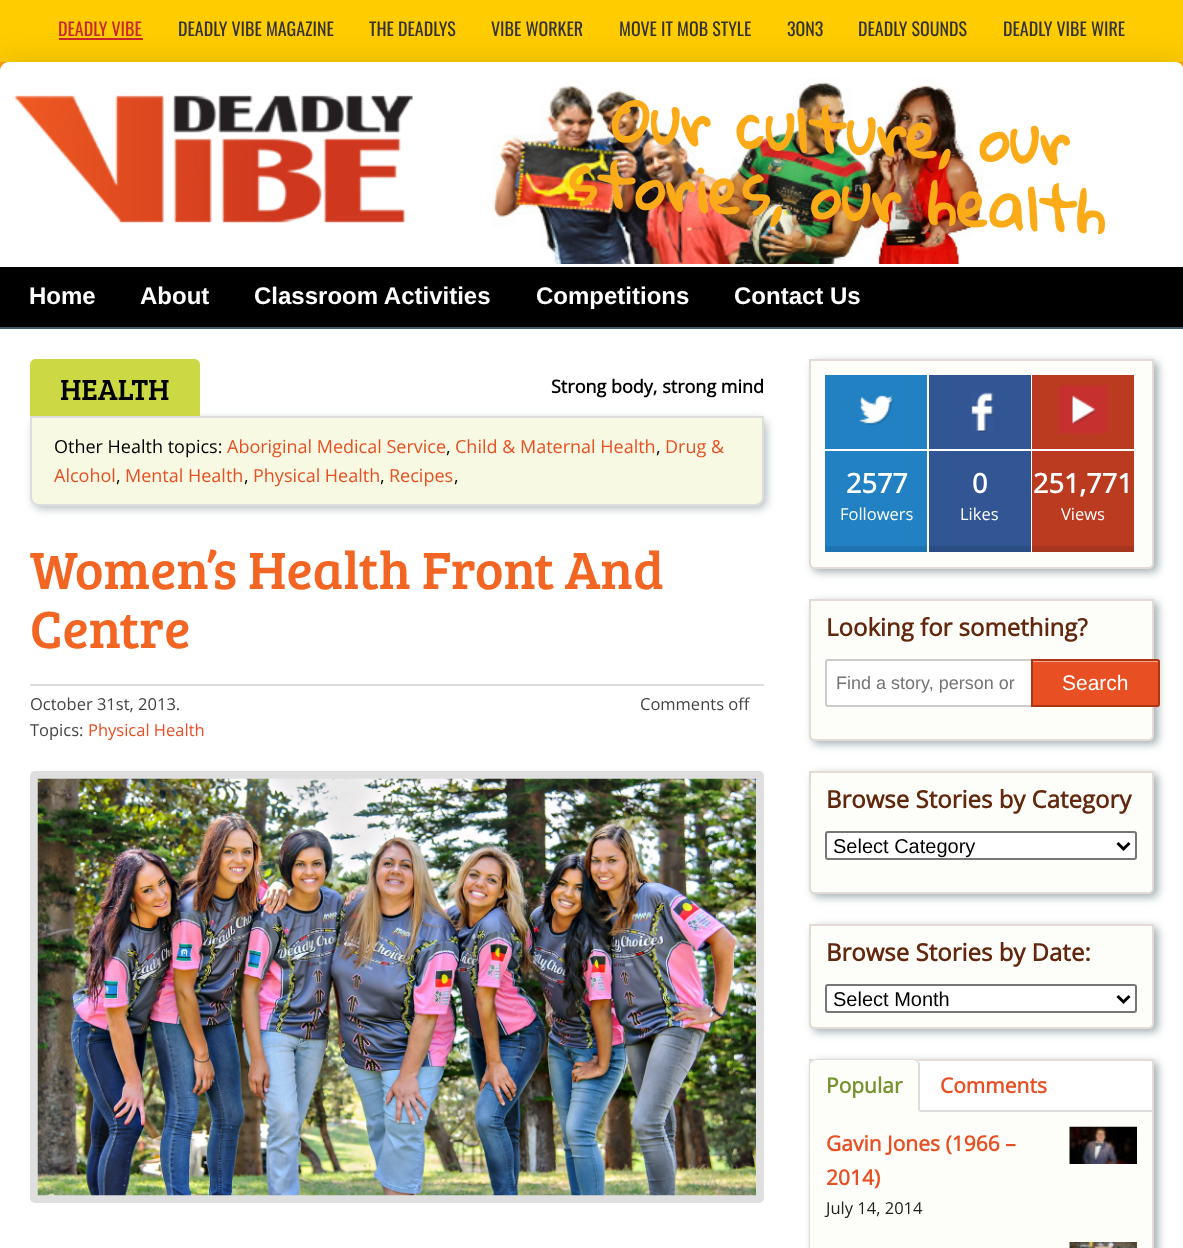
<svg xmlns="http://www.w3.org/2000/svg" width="1183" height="1248">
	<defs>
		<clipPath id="clip1"><path d="M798 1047H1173V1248H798ZM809 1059H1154V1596C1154 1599 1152 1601 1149 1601H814C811 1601 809 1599 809 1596Z" clip-rule="evenodd" /></clipPath>
	</defs>
	<rect width="100%" height="100%" fill="#FFFFFF" />
	<image x="0" y="62" width="1183" height="9" href="assets/img1.png" />
	<rect x="0" y="0" width="1183" height="62" fill="#FFCC00" />
	<text x="58" y="36" font-family="Oswald" font-size="18" fill="#C72730">DEADLY VIBE</text>
	<rect x="59" y="38" width="84" height="2" fill="#C72730" />
	<g font-family="Oswald" font-size="18" fill="#333333">
		<text x="178" y="36">DEADLY VIBE MAGAZINE</text>
		<text x="369" y="36">THE DEADLYS</text>
		<text x="491" y="36">VIBE WORKER</text>
		<text x="619" y="36">MOVE IT MOB STYLE</text>
		<text x="787" y="36">3ON3</text>
		<text x="858" y="36">DEADLY SOUNDS</text>
		<text x="1003" y="36">DEADLY VIBE WIRE</text>
	</g>
	<rect x="0" y="62" width="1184" height="205" rx="9" fill="#000000" fill-opacity="0.12" filter="blur(15px)" />
	<path d="M9 62H1175C1180 62 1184 66 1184 71V267H0V71C0 66 4 62 9 62Z" fill="#FFFFFF" />
	<image x="492" y="78" width="573" height="186" href="assets/img2.png" />
	<image x="14" y="95" width="399" height="128" href="assets/img3.png" />
	<g font-family="Gloria Hallelujah" font-size="60" font-weight="700" fill="#FBAB18">
		<text x="611" y="142" transform="rotate(3 611 142)">Our culture, our</text>
		<text x="567" y="206" transform="rotate(3 567 206)">stories, our health</text>
	</g>
	<rect x="0" y="327" width="1183" height="2" fill="#3F5665" />
	<rect x="0" y="267" width="1183" height="60" fill="#000000" />
	<g font-family="Liberation Sans" font-size="24" font-weight="700" fill="#FFFFFF">
		<text x="29" y="304">Home</text>
		<text x="140" y="304">About</text>
		<text x="254" y="304">Classroom Activities</text>
		<text x="536" y="304">Competitions</text>
		<text x="734" y="304">Contact Us</text>
	</g>
	<rect x="33" y="419" width="734" height="90" rx="9" fill="#13343B" fill-opacity="0.3" filter="blur(4.5px)" />
	<path d="M36 359H194C197.5 359 200 361.5 200 365V416H30V365C30 361.5 32.5 359 36 359Z" fill="#CCD944" />
	<text x="60" y="400" font-family="Bree Serif" font-size="30" fill="#000000">HEALTH</text>
	<text x="551" y="393" font-family="Open Sans" font-size="18" font-weight="700" fill="#000000">Strong body, strong mind</text>
	<path d="M31 417H763V497C763 501.5 759.5 505 755 505H39C34.5 505 31 501.5 31 497Z" fill="#F7F9E3" stroke="#DDDDDD" stroke-width="2" />
	<text x="54" y="453" font-family="Open Sans" font-size="18" fill="#000000">Other Health topics:</text>
	<text x="227" y="453" font-family="Open Sans" font-size="18" fill="#E84F22">Aboriginal Medical Service</text>
	<text x="446" y="453" font-family="Open Sans" font-size="18" fill="#000000">,</text>
	<text x="455" y="453" font-family="Open Sans" font-size="18" fill="#E84F22">Child &amp; Maternal Health</text>
	<text x="656" y="453" font-family="Open Sans" font-size="18" fill="#000000">,</text>
	<g font-family="Open Sans" font-size="18" fill="#E84F22">
		<text x="665" y="453">Drug &amp;</text>
		<text x="54" y="482">Alcohol</text>
	</g>
	<text x="116" y="482" font-family="Open Sans" font-size="18" fill="#000000">,</text>
	<text x="125" y="482" font-family="Open Sans" font-size="18" fill="#E84F22">Mental Health</text>
	<text x="244" y="482" font-family="Open Sans" font-size="18" fill="#000000">,</text>
	<text x="253" y="482" font-family="Open Sans" font-size="18" fill="#E84F22">Physical Health</text>
	<text x="380" y="482" font-family="Open Sans" font-size="18" fill="#000000">,</text>
	<text x="389" y="482" font-family="Open Sans" font-size="18" fill="#E84F22">Recipes</text>
	<text x="454" y="482" font-family="Open Sans" font-size="18" fill="#000000">,</text>
	<g font-family="Bree Serif" font-size="54" fill="#F26522">
		<text x="30" y="589">Women’s Health Front And</text>
		<text x="30" y="648">Centre</text>
	</g>
	<rect x="30" y="684" width="734" height="2" fill="#DDDDDD" />
	<g font-family="Open Sans" font-size="16.5" fill="#444444">
		<text x="30" y="710">October 31st, 2013.</text>
		<text x="640" y="710">Comments off</text>
		<text x="30" y="736">Topics:</text>
	</g>
	<text x="88" y="736" font-family="Open Sans" font-size="16.5" fill="#E84F22">Physical Health</text>
	<rect x="30" y="771" width="734" height="432" rx="5" fill="#DFDFDF" />
	<image x="37" y="778" width="719" height="418" href="assets/img4.png" />
	<rect x="813" y="362" width="345" height="210" rx="5" fill="#13343B" fill-opacity="0.4" filter="blur(4.5px)" />
	<path d="M810 360H1153V564C1153 566 1151 568 1149 568H814C812 568 810 566 810 564Z" fill="#FDFDF9" stroke="#E4DAD6" stroke-width="2" />
	<rect x="825" y="375" width="102" height="171" fill="#2181C3" />
	<rect x="825" y="546" width="102" height="6" fill="#1E74B0" />
	<image x="859" y="395" width="35" height="30" href="assets/img5.png" />
	<rect x="825" y="449" width="102" height="2" fill="#FFFFFF" />
	<text x="846" y="493" font-family="Open Sans" font-size="27" font-weight="700" fill="#FFFFFF">2577</text>
	<text x="840" y="520" font-family="Open Sans" font-size="16.5" fill="#FFFFFF">Followers</text>
	<rect x="929" y="375" width="102" height="171" fill="#315693" />
	<rect x="929" y="546" width="102" height="6" fill="#2C4D84" />
	<image x="971" y="392" width="23" height="40" href="assets/img6.png" />
	<rect x="929" y="449" width="102" height="2" fill="#FFFFFF" />
	<text x="972" y="493" font-family="Open Sans" font-size="27" font-weight="700" fill="#FFFFFF">0</text>
	<text x="960" y="520" font-family="Open Sans" font-size="16.5" fill="#FFFFFF">Likes</text>
	<rect x="1032" y="375" width="102" height="171" fill="#BB3B20" />
	<rect x="1032" y="546" width="102" height="6" fill="#A8351D" />
	<image x="1059" y="385" width="48" height="49" href="assets/img7.png" />
	<rect x="1032" y="449" width="102" height="2" fill="#FFFFFF" />
	<text x="1033" y="493" font-family="Open Sans" font-size="27" font-weight="700" fill="#FFFFFF">251,771</text>
	<text x="1061" y="520" font-family="Open Sans" font-size="16.5" fill="#FFFFFF">Views</text>
	<rect x="813" y="602" width="345" height="142" rx="5" fill="#13343B" fill-opacity="0.4" filter="blur(4.5px)" />
	<path d="M810 600H1153V736C1153 738 1151 740 1149 740H814C812 740 810 738 810 736Z" fill="#FDFDF9" stroke="#E4DAD6" stroke-width="2" />
	<text x="826" y="636" font-family="Open Sans" font-size="24" font-weight="700" fill="#61280E">Looking for something?</text>
	<rect x="826" y="660" width="207" height="46" rx="2" fill="#FFFFFF" stroke="#CCCCCC" stroke-width="2" />
	<text x="836" y="689" font-family="Liberation Sans" font-size="18" fill="#757575">Find a story, person or</text>
	<path d="M1031 659H1157C1158.5 659 1160 660.5 1160 662V704C1160 705.5 1158.5 707 1157 707H1031Z" fill="#E84F22" />
	<path d="M1032 662H1156C1157 662 1158 662 1158 663C1158 662 1158 660 1156 660H1032Z" fill="#F4A791" />
	<path d="M1032 660H1157C1158 660 1159 661 1159 662V704C1159 705 1158 706 1157 706H1032Z" fill="none" stroke="#AC3512" stroke-width="2" />
	<text x="1062" y="690" font-family="Liberation Sans" font-size="21" fill="#FFFFFF">Search</text>
	<rect x="813" y="774" width="345" height="123" rx="5" fill="#13343B" fill-opacity="0.4" filter="blur(4.5px)" />
	<path d="M810 772H1153V889C1153 891 1151 893 1149 893H814C812 893 810 891 810 889Z" fill="#FDFDF9" stroke="#E4DAD6" stroke-width="2" />
	<text x="826" y="808" font-family="Open Sans" font-size="24" font-weight="700" fill="#61280E">Browse Stories by Category</text>
	<rect x="826" y="832" width="310" height="27" rx="2" fill="#FFFFFF" stroke="#767676" stroke-width="2" />
	<path d="M1117.5 843L1123.5 849L1129.5 843" fill="none" stroke="#000000" stroke-width="3" />
	<text x="833" y="853" font-family="Liberation Sans" font-size="20" fill="#000000">Select Category</text>
	<rect x="813" y="927" width="345" height="105" rx="5" fill="#13343B" fill-opacity="0.4" filter="blur(4.5px)" />
	<path d="M810 925H1153V1024C1153 1026 1151 1028 1149 1028H814C812 1028 810 1026 810 1024Z" fill="#FDFDF9" stroke="#E4DAD6" stroke-width="2" />
	<text x="826" y="961" font-family="Open Sans" font-size="24" font-weight="700" fill="#61280E">Browse Stories by Date:</text>
	<rect x="826" y="985" width="310" height="27" rx="2" fill="#FFFFFF" stroke="#767676" stroke-width="2" />
	<path d="M1117.5 996L1123.5 1002L1129.5 996" fill="none" stroke="#000000" stroke-width="3" />
	<text x="833" y="1006" font-family="Liberation Sans" font-size="20" fill="#000000">Select Month</text>
	<g clip-path="url(#clip1)">
		<rect x="813" y="1062" width="345" height="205" rx="5" fill="#13343B" fill-opacity="0.4" filter="blur(4.5px)" />
	</g>
	<rect x="810" y="1060" width="343" height="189" fill="none" stroke="#E4DAD6" stroke-width="2" />
	<rect x="920" y="1110" width="232" height="2" fill="#DDDDDD" />
	<path d="M816 1059H914C917.5 1059 920 1061.5 920 1065V1112H810V1065C810 1061.5 812.5 1059 816 1059Z" fill="#FDFDF9" />
	<text x="826" y="1093" font-family="Open Sans" font-size="21" font-weight="700" fill="#759430">Popular</text>
	<path d="M816 1059C813 1059 810 1062 810 1065C810 1063 813 1061 815 1060H914L917 1062L918 1061C917 1060 915 1059 914 1059Z" fill="#DDDDDD" />
	<path d="M918 1110V1065C918 1064 918 1063 917 1062L918 1061L920 1063V1112Z" fill="#DDDDDD" />
	<text x="940" y="1093" font-family="Open Sans" font-size="21" font-weight="700" fill="#E84F22">Comments</text>
	<rect x="810" y="1112" width="342" height="136" fill="#FDFDF9" />
	<text x="826" y="1151" font-family="Open Sans" font-size="21" font-weight="700" fill="#E84F22">Gavin Jones (1966 –</text>
	<image x="1069" y="1126" width="68" height="38" href="assets/img8.png" />
	<text x="826" y="1185" font-family="Open Sans" font-size="21" font-weight="700" fill="#E84F22">2014)</text>
	<text x="826" y="1214" font-family="Open Sans" font-size="16.5" fill="#222222">July 14, 2014</text>
	<image x="1069" y="1242" width="68" height="6" href="assets/img9.png" />
</svg>
